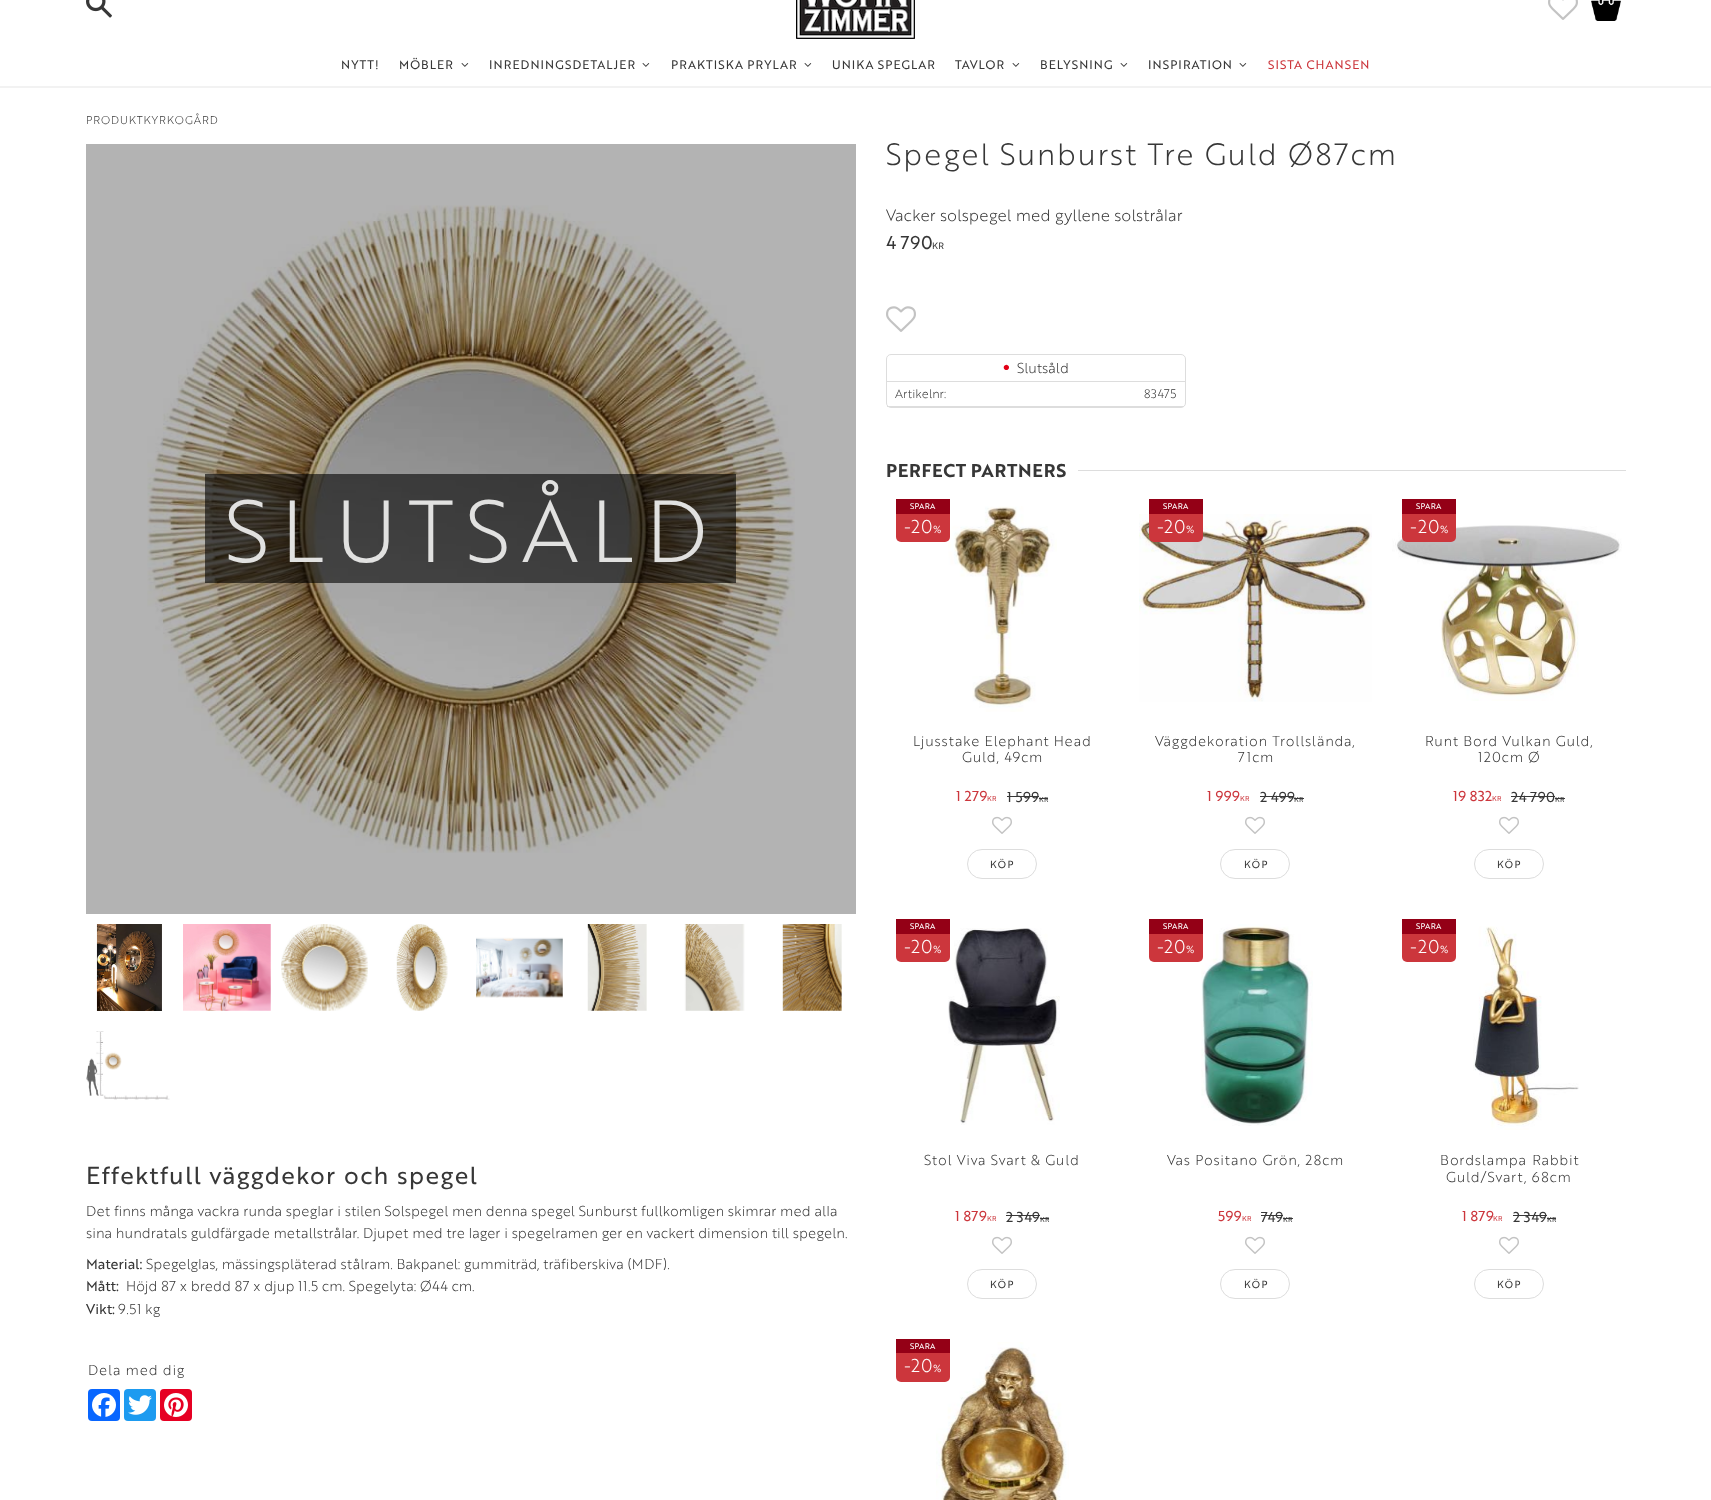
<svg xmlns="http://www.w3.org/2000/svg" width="1711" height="1500">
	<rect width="100%" height="100%" fill="#FFFFFF" />
	<rect x="86" y="144" width="770" height="770" fill="#B3B3B3" />
	<rect x="0" y="86" width="1711" height="2" fill="#F2F2F2" />
	<image x="796" y="0" width="119" height="39" href="assets/img1.png" />
	<image x="86" y="0" width="26" height="18" href="assets/img2.png" />
	<image x="1548" y="0" width="30" height="20" href="assets/img3.png" />
	<image x="1591" y="0" width="30" height="21" href="assets/img4.png" />
	<g font-family="'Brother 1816'" font-size="12" letter-spacing="0.6" fill="#373737">
		<text x="341" y="69">NYTT!</text>
		<text x="399" y="69">MÖBLER</text>
	</g>
	<image x="461" y="63" width="8" height="4" href="assets/img5.png" />
	<text x="489" y="69" font-family="'Brother 1816'" font-size="12" letter-spacing="0.6" fill="#373737">INREDNINGSDETALJER</text>
	<image x="642" y="63" width="8" height="4" href="assets/img5.png" />
	<text x="671" y="69" font-family="'Brother 1816'" font-size="12" letter-spacing="0.6" fill="#373737">PRAKTISKA PRYLAR</text>
	<image x="804" y="63" width="8" height="4" href="assets/img5.png" />
	<g font-family="'Brother 1816'" font-size="12" letter-spacing="0.6" fill="#373737">
		<text x="832" y="69">UNIKA SPEGLAR</text>
		<text x="955" y="69">TAVLOR</text>
	</g>
	<image x="1012" y="63" width="8" height="4" href="assets/img5.png" />
	<text x="1040" y="69" font-family="'Brother 1816'" font-size="12" letter-spacing="0.6" fill="#373737">BELYSNING</text>
	<image x="1120" y="63" width="8" height="4" href="assets/img5.png" />
	<text x="1148" y="69" font-family="'Brother 1816'" font-size="12" letter-spacing="0.6" fill="#373737">INSPIRATION</text>
	<image x="1239" y="63" width="8" height="4" href="assets/img5.png" />
	<text x="1268" y="69" font-family="'Brother 1816'" font-size="12" letter-spacing="0.6" fill="#CC363C">SISTA CHANSEN</text>
	<text x="86" y="124" font-family="'Brother 1816'" font-size="11" font-weight="300" letter-spacing="0.5" fill="#373737">PRODUKTKYRKOGÅRD</text>
	<text x="886" y="165" font-family="'Brother 1816'" font-size="30" font-weight="300" letter-spacing="1.5" fill="#373737">Spegel Sunburst Tre Guld Ø87cm</text>
	<text x="886" y="221" font-family="'Brother 1816'" font-size="16" font-weight="300" fill="#373737">Vacker solspegel med gyllene solstrålar</text>
	<text x="886" y="249" font-family="'Brother 1816'" font-size="18" fill="#373737">4 790</text>
	<text x="932" y="249" font-family="'Brother 1816'" font-size="9" fill="#373737">KR</text>
	<image x="886" y="306" width="30" height="26" href="assets/img6.png" />
	<rect x="886.5" y="354.5" width="299" height="53" rx="4.5" fill="none" stroke="#DDDDDD" />
	<rect x="887" y="381" width="298" height="1" fill="#DDDDDD" />
	<text x="1002" y="380" font-family="'Brother 1816'" font-size="35" font-weight="300" fill="#E20016">•</text>
	<text x="1017" y="373" font-family="'Brother 1816'" font-size="14" font-weight="300" fill="#373737">Slutsåld</text>
	<text x="895" y="398" font-family="'Brother 1816'" font-size="12" font-weight="300" fill="#373737">Artikelnr:</text>
	<rect x="887" y="406" width="297" height="1" fill="#DDDDDD" />
	<text x="1144" y="398" font-family="'Brother 1816'" font-size="12" font-weight="300" fill="#373737">83475</text>
	<image x="147" y="205" width="648" height="648" href="assets/img7.png" />
	<rect x="205" y="474" width="531" height="109" fill="#000000" fill-opacity="0.6" />
	<text x="225" y="562" font-family="'Brother 1816'" font-size="85.5" font-weight="300" letter-spacing="8.5" fill="#E1E1E0">SLUTSÅLD</text>
	<image x="96" y="924" width="66" height="87" href="assets/img8.png" />
	<image x="183" y="924" width="88" height="87" href="assets/img9.png" />
	<image x="281" y="924" width="87" height="87" href="assets/img10.png" />
	<image x="396" y="924" width="52" height="87" href="assets/img11.png" />
	<image x="476" y="937" width="87" height="61" href="assets/img12.png" />
	<image x="587" y="924" width="60" height="87" href="assets/img13.png" />
	<image x="684" y="924" width="61" height="87" href="assets/img14.png" />
	<image x="782" y="924" width="60" height="87" href="assets/img15.png" />
	<image x="86" y="1031" width="84" height="69" href="assets/img16.png" />
	<text x="86" y="1184" font-family="'Brother 1816'" font-size="24" letter-spacing="1.2" fill="#373737">Effektfull väggdekor och spegel</text>
	<g font-family="'Brother 1816'" font-size="14" font-weight="300" fill="#373737">
		<text x="86" y="1216">Det finns många vackra runda speglar i stilen Solspegel men denna spegel Sunburst fullkomligen skimrar med alla</text>
		<text x="86" y="1238">sina hundratals guldfärgade metallstrålar. Djupet med tre lager i spegelramen ger en vackert dimension till spegeln.</text>
	</g>
	<text x="86" y="1269" font-family="'Brother 1816'" font-size="14" fill="#373737">Material:</text>
	<text x="146" y="1269" font-family="'Brother 1816'" font-size="14" font-weight="300" fill="#373737">Spegelglas, mässingspläterad stålram. Bakpanel: gummiträd, träfiberskiva (MDF).</text>
	<text x="86" y="1291" font-family="'Brother 1816'" font-size="14" fill="#373737">Mått:</text>
	<text x="126" y="1291" font-family="'Brother 1816'" font-size="14" font-weight="300" fill="#373737">Höjd 87 x bredd 87 x djup 11.5 cm. Spegelyta: Ø44 cm.</text>
	<text x="86" y="1314" font-family="'Brother 1816'" font-size="14" fill="#373737">Vikt:</text>
	<text x="118" y="1314" font-family="'Brother 1816'" font-size="14" font-weight="300" fill="#373737">9.51 kg</text>
	<text x="88" y="1375" font-family="'Brother 1816'" font-size="14" font-weight="300" letter-spacing="0.7" fill="#373737">Dela med dig</text>
	<rect x="88" y="1389" width="32" height="32" rx="4" fill="#0866FF" />
	<image x="92" y="1393" width="24" height="24" href="assets/img17.png" />
	<rect x="124" y="1389" width="32" height="32" rx="4" fill="#1D9BF0" />
	<image x="128" y="1395" width="24" height="20" href="assets/img18.png" />
	<rect x="160" y="1389" width="32" height="32" rx="4" fill="#E60023" />
	<image x="164" y="1393" width="24" height="24" href="assets/img19.png" />
	<text x="886" y="477" font-family="'Brother 1816'" font-size="18" font-weight="700" fill="#373737">PERFECT PARTNERS</text>
	<rect x="1078" y="470" width="548" height="1" fill="#DDDDDD" />
	<image x="948" y="506" width="109" height="206" href="assets/img20.png" />
	<rect x="896" y="499" width="54" height="43" rx="5" fill="#CC363C" />
	<rect x="896" y="499" width="54" height="15" fill="#940016" />
	<text x="910" y="509" font-family="'Brother 1816'" font-size="8" fill="#FFFFFF">SPARA</text>
	<g font-family="'Brother 1816'" font-size="18" font-weight="300" fill="#FFFFFF">
		<text x="904" y="533">-</text>
		<text x="911" y="533">20</text>
	</g>
	<text x="933" y="533" font-family="'Brother 1816'" font-size="10" fill="#FFFFFF">%</text>
	<g font-family="'Brother 1816'" font-size="14" font-weight="300" letter-spacing="0.7" fill="#373737">
		<text x="913" y="746">Ljusstake Elephant Head</text>
		<text x="962" y="762">Guld, 49cm</text>
	</g>
	<text x="956" y="801" font-family="'Brother 1816'" font-size="14" fill="#CC363C">1 279</text>
	<text x="987" y="801" font-family="'Brother 1816'" font-size="7" fill="#CC363C">KR</text>
	<text x="1007" y="802" font-family="'Brother 1816'" font-size="14" fill="#373737">1 599</text>
	<rect x="1007" y="796" width="32" height="1" fill="#373737" />
	<text x="1039" y="802" font-family="'Brother 1816'" font-size="7" fill="#373737">KR</text>
	<rect x="1039" y="798" width="9" height="1" fill="#373737" />
	<image x="992" y="816" width="20" height="18" href="assets/img21.png" />
	<rect x="967.5" y="849.5" width="69" height="29" rx="14.5" fill="none" stroke="#DDDDDD" />
	<text x="990" y="868" font-family="'Brother 1816'" font-size="10" letter-spacing="1" fill="#373737">KÖP</text>
	<image x="1139" y="514" width="233" height="188" href="assets/img22.png" />
	<rect x="1149" y="499" width="54" height="43" rx="5" fill="#CC363C" />
	<rect x="1149" y="499" width="54" height="15" fill="#940016" />
	<text x="1163" y="509" font-family="'Brother 1816'" font-size="8" fill="#FFFFFF">SPARA</text>
	<g font-family="'Brother 1816'" font-size="18" font-weight="300" fill="#FFFFFF">
		<text x="1157" y="533">-</text>
		<text x="1164" y="533">20</text>
	</g>
	<text x="1186" y="533" font-family="'Brother 1816'" font-size="10" fill="#FFFFFF">%</text>
	<g font-family="'Brother 1816'" font-size="14" font-weight="300" letter-spacing="0.7" fill="#373737">
		<text x="1155" y="746">Väggdekoration Trollslända,</text>
		<text x="1238" y="762">71cm</text>
	</g>
	<text x="1207" y="801" font-family="'Brother 1816'" font-size="14" fill="#CC363C">1 999</text>
	<text x="1240" y="801" font-family="'Brother 1816'" font-size="7" fill="#CC363C">KR</text>
	<text x="1260" y="802" font-family="'Brother 1816'" font-size="14" fill="#373737">2 499</text>
	<rect x="1260" y="796" width="34" height="1" fill="#373737" />
	<text x="1294" y="802" font-family="'Brother 1816'" font-size="7" fill="#373737">KR</text>
	<rect x="1294" y="798" width="10" height="1" fill="#373737" />
	<image x="1245" y="816" width="20" height="18" href="assets/img21.png" />
	<rect x="1220.5" y="849.5" width="69" height="29" rx="14.5" fill="none" stroke="#DDDDDD" />
	<text x="1244" y="868" font-family="'Brother 1816'" font-size="10" letter-spacing="1" fill="#373737">KÖP</text>
	<image x="1392" y="525" width="230" height="176" href="assets/img23.png" />
	<rect x="1402" y="499" width="54" height="43" rx="5" fill="#CC363C" />
	<rect x="1402" y="499" width="54" height="15" fill="#940016" />
	<text x="1416" y="509" font-family="'Brother 1816'" font-size="8" fill="#FFFFFF">SPARA</text>
	<g font-family="'Brother 1816'" font-size="18" font-weight="300" fill="#FFFFFF">
		<text x="1410" y="533">-</text>
		<text x="1418" y="533">20</text>
	</g>
	<text x="1440" y="533" font-family="'Brother 1816'" font-size="10" fill="#FFFFFF">%</text>
	<g font-family="'Brother 1816'" font-size="14" font-weight="300" letter-spacing="0.7" fill="#373737">
		<text x="1425" y="746">Runt Bord Vulkan Guld,</text>
		<text x="1478" y="762">120cm Ø</text>
	</g>
	<text x="1453" y="801" font-family="'Brother 1816'" font-size="14" fill="#CC363C">19 832</text>
	<text x="1492" y="801" font-family="'Brother 1816'" font-size="7" fill="#CC363C">KR</text>
	<text x="1511" y="802" font-family="'Brother 1816'" font-size="14" fill="#373737">24 790</text>
	<rect x="1511" y="796" width="44" height="1" fill="#373737" />
	<text x="1555" y="802" font-family="'Brother 1816'" font-size="7" fill="#373737">KR</text>
	<rect x="1555" y="798" width="10" height="1" fill="#373737" />
	<image x="1499" y="816" width="20" height="18" href="assets/img21.png" />
	<rect x="1474.5" y="849.5" width="69" height="29" rx="14.5" fill="none" stroke="#DDDDDD" />
	<text x="1497" y="868" font-family="'Brother 1816'" font-size="10" letter-spacing="1" fill="#373737">KÖP</text>
	<image x="948" y="928" width="112" height="197" href="assets/img24.png" />
	<rect x="896" y="919" width="54" height="43" rx="5" fill="#CC363C" />
	<rect x="896" y="919" width="54" height="15" fill="#940016" />
	<text x="910" y="929" font-family="'Brother 1816'" font-size="8" fill="#FFFFFF">SPARA</text>
	<g font-family="'Brother 1816'" font-size="18" font-weight="300" fill="#FFFFFF">
		<text x="904" y="953">-</text>
		<text x="911" y="953">20</text>
	</g>
	<text x="933" y="953" font-family="'Brother 1816'" font-size="10" fill="#FFFFFF">%</text>
	<text x="924" y="1165" font-family="'Brother 1816'" font-size="14" font-weight="300" letter-spacing="0.7" fill="#373737">Stol Viva Svart &amp; Guld</text>
	<text x="955" y="1221" font-family="'Brother 1816'" font-size="14" fill="#CC363C">1 879</text>
	<text x="987" y="1221" font-family="'Brother 1816'" font-size="7" fill="#CC363C">KR</text>
	<text x="1006" y="1222" font-family="'Brother 1816'" font-size="14" fill="#373737">2 349</text>
	<rect x="1006" y="1215" width="34" height="1" fill="#373737" />
	<text x="1040" y="1222" font-family="'Brother 1816'" font-size="7" fill="#373737">KR</text>
	<rect x="1040" y="1218" width="9" height="1" fill="#373737" />
	<image x="992" y="1236" width="20" height="18" href="assets/img21.png" />
	<rect x="967.5" y="1269.5" width="69" height="29" rx="14.5" fill="none" stroke="#DDDDDD" />
	<text x="990" y="1288" font-family="'Brother 1816'" font-size="10" letter-spacing="1" fill="#373737">KÖP</text>
	<image x="1201" y="924" width="112" height="202" href="assets/img25.png" />
	<rect x="1149" y="919" width="54" height="43" rx="5" fill="#CC363C" />
	<rect x="1149" y="919" width="54" height="15" fill="#940016" />
	<text x="1163" y="929" font-family="'Brother 1816'" font-size="8" fill="#FFFFFF">SPARA</text>
	<g font-family="'Brother 1816'" font-size="18" font-weight="300" fill="#FFFFFF">
		<text x="1157" y="953">-</text>
		<text x="1164" y="953">20</text>
	</g>
	<text x="1186" y="953" font-family="'Brother 1816'" font-size="10" fill="#FFFFFF">%</text>
	<text x="1167" y="1165" font-family="'Brother 1816'" font-size="14" font-weight="300" letter-spacing="0.7" fill="#373737">Vas Positano Grön, 28cm</text>
	<text x="1218" y="1221" font-family="'Brother 1816'" font-size="14" fill="#CC363C">599</text>
	<text x="1242" y="1221" font-family="'Brother 1816'" font-size="7" fill="#CC363C">KR</text>
	<text x="1261" y="1222" font-family="'Brother 1816'" font-size="14" fill="#373737">749</text>
	<rect x="1261" y="1215" width="22" height="1" fill="#373737" />
	<text x="1283" y="1222" font-family="'Brother 1816'" font-size="7" fill="#373737">KR</text>
	<rect x="1283" y="1218" width="10" height="1" fill="#373737" />
	<image x="1245" y="1236" width="20" height="18" href="assets/img21.png" />
	<rect x="1220.5" y="1269.5" width="69" height="29" rx="14.5" fill="none" stroke="#DDDDDD" />
	<text x="1244" y="1288" font-family="'Brother 1816'" font-size="10" letter-spacing="1" fill="#373737">KÖP</text>
	<rect x="1402" y="919" width="54" height="43" rx="5" fill="#CC363C" />
	<rect x="1402" y="919" width="54" height="15" fill="#940016" />
	<text x="1416" y="929" font-family="'Brother 1816'" font-size="8" fill="#FFFFFF">SPARA</text>
	<g font-family="'Brother 1816'" font-size="18" font-weight="300" fill="#FFFFFF">
		<text x="1410" y="953">-</text>
		<text x="1418" y="953">20</text>
	</g>
	<text x="1440" y="953" font-family="'Brother 1816'" font-size="10" fill="#FFFFFF">%</text>
	<image x="1473" y="926" width="106" height="204" href="assets/img26.png" />
	<g font-family="'Brother 1816'" font-size="14" font-weight="300" letter-spacing="0.7" fill="#373737">
		<text x="1440" y="1165" word-spacing="1">Bordslampa Rabbit</text>
		<text x="1446" y="1182">Guld/Svart, 68cm</text>
	</g>
	<text x="1462" y="1221" font-family="'Brother 1816'" font-size="14" fill="#CC363C">1 879</text>
	<text x="1493" y="1221" font-family="'Brother 1816'" font-size="7" fill="#CC363C">KR</text>
	<text x="1513" y="1222" font-family="'Brother 1816'" font-size="14" fill="#373737">2 349</text>
	<rect x="1513" y="1215" width="34" height="1" fill="#373737" />
	<text x="1547" y="1222" font-family="'Brother 1816'" font-size="7" fill="#373737">KR</text>
	<rect x="1547" y="1218" width="9" height="1" fill="#373737" />
	<image x="1499" y="1236" width="20" height="18" href="assets/img21.png" />
	<rect x="1474.5" y="1269.5" width="69" height="29" rx="14.5" fill="none" stroke="#DDDDDD" />
	<text x="1497" y="1288" font-family="'Brother 1816'" font-size="10" letter-spacing="1" fill="#373737">KÖP</text>
	<image x="936" y="1342" width="133" height="158" href="assets/img27.png" />
	<rect x="896" y="1339" width="54" height="43" rx="5" fill="#CC363C" />
	<rect x="896" y="1339" width="54" height="14" fill="#940016" />
	<text x="910" y="1349" font-family="'Brother 1816'" font-size="8" fill="#FFFFFF">SPARA</text>
	<g font-family="'Brother 1816'" font-size="18" font-weight="300" fill="#FFFFFF">
		<text x="904" y="1372">-</text>
		<text x="911" y="1372">20</text>
	</g>
	<text x="933" y="1372" font-family="'Brother 1816'" font-size="10" fill="#FFFFFF">%</text>
</svg>
